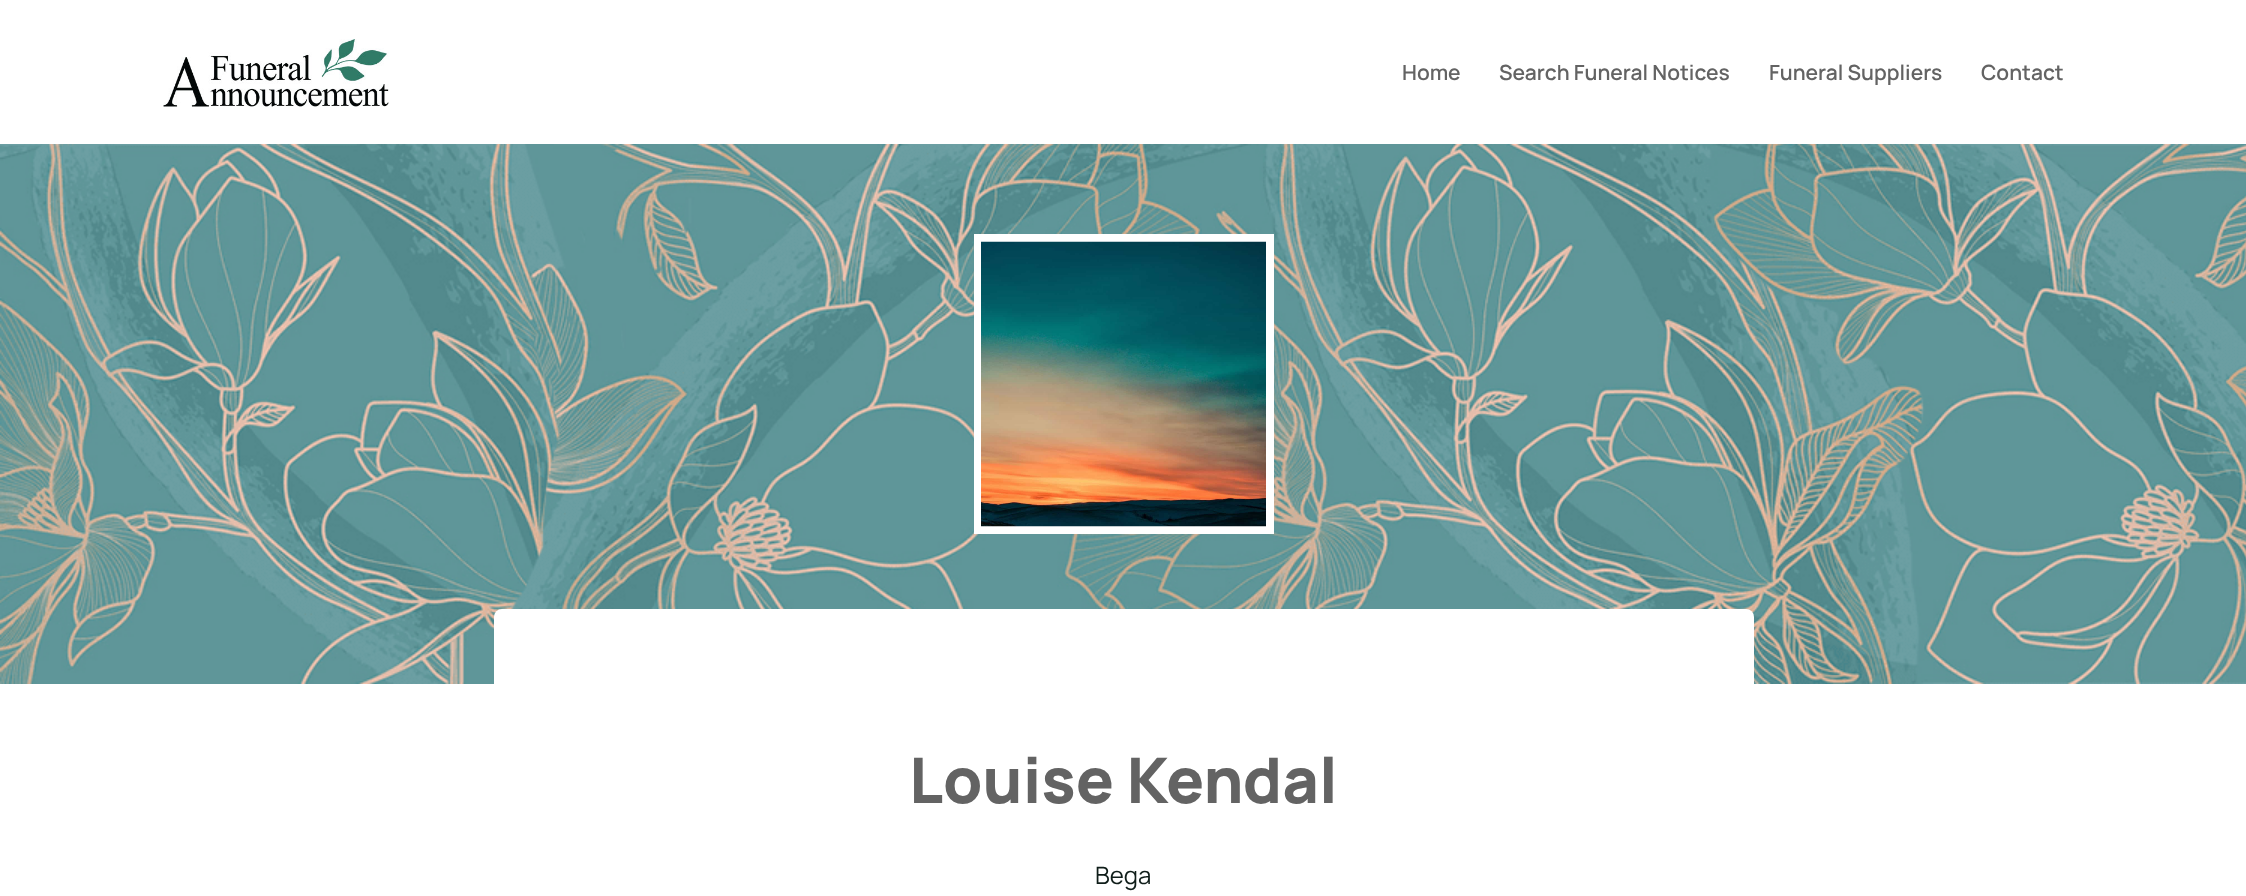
<svg xmlns="http://www.w3.org/2000/svg" width="2246" height="896">
	<rect width="100%" height="100%" fill="#FFFFFF" />
	<image x="163" y="39" width="226" height="68" href="assets/img1.png" />
	<g font-family="Manrope" font-size="21" font-weight="600" fill="#636363">
		<text x="1402" y="80">Home</text>
		<text x="1499" y="80">Search Funeral Notices</text>
		<text x="1769" y="80">Funeral Suppliers</text>
		<text x="1981" y="80">Contact</text>
	</g>
	<image x="0" y="144" width="2246" height="540" href="assets/img2.png" />
	<rect x="978" y="238" width="292" height="292" fill="none" stroke="#FFFFFF" stroke-width="8" />
	<image x="981" y="241" width="285" height="286" href="assets/img3.png" />
	<rect x="494" y="609" width="1260" height="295" rx="8" fill="#FFFFFF" />
	<text x="909" y="803" font-family="Manrope" font-size="63" font-weight="800" fill="#636363">Louise Kendal</text>
	<text x="1095" y="884" font-family="Manrope" font-size="24" fill="#0F1D19">Bega</text>
</svg>
